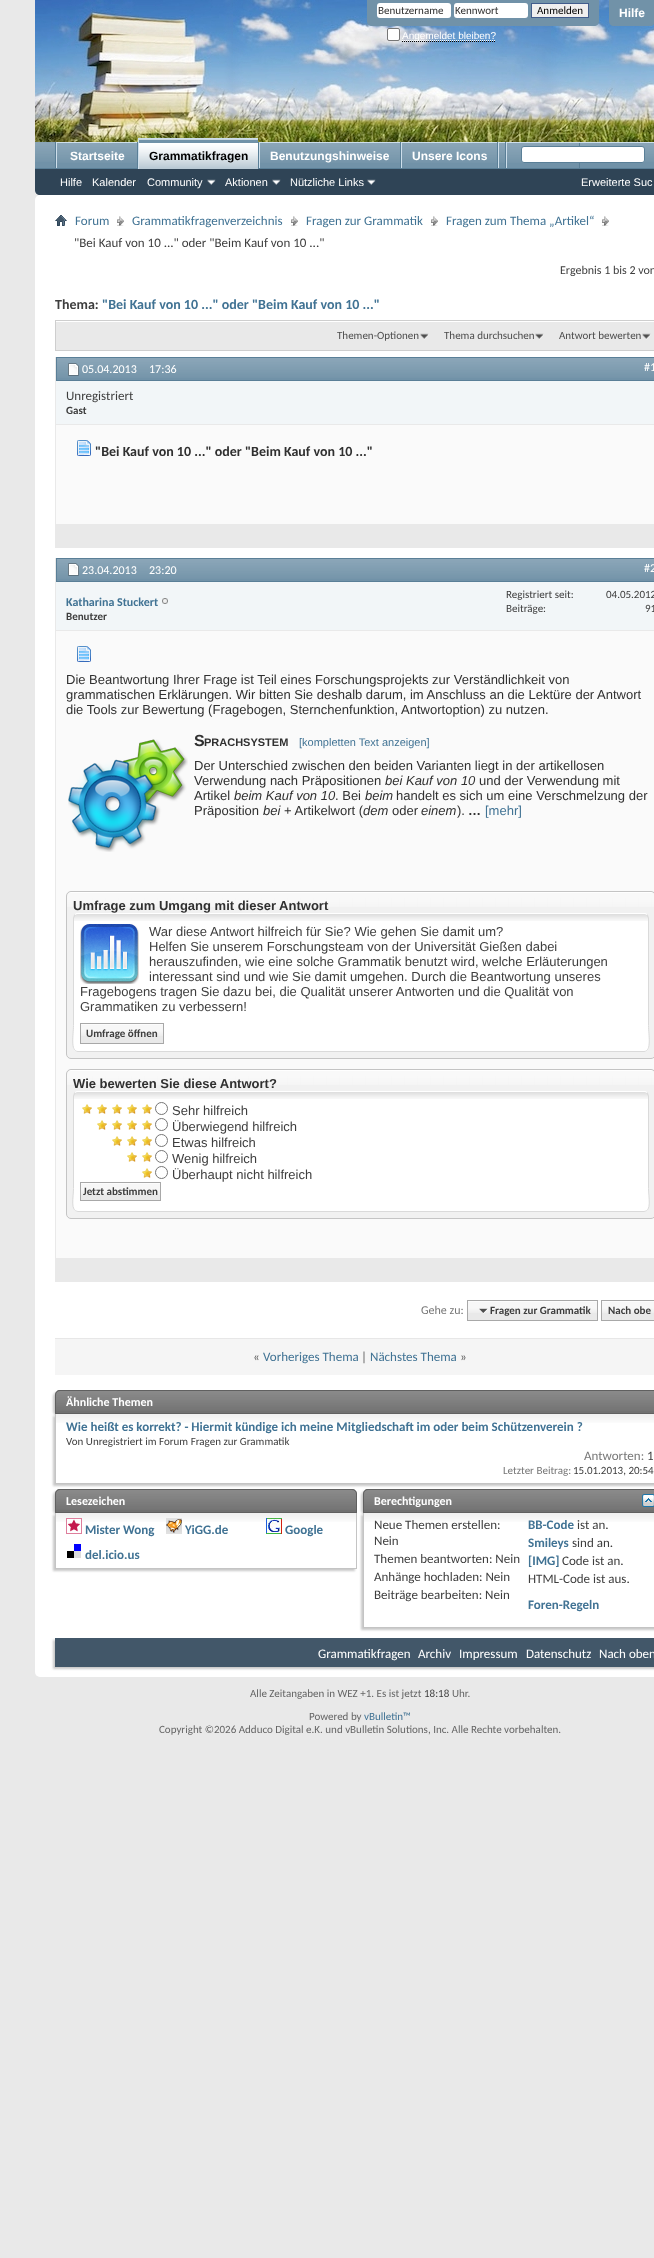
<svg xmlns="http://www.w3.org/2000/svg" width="654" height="2258">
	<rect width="100%" height="100%" fill="#E9E9E9" />
	<image x="223" y="0" width="431" height="142" href="assets/img1.png" />
	<image x="35" y="0" width="198" height="142" href="assets/img2.png" />
	<path d="M367 0H599V21C599 24 597 26 594 26H372C369 26 367 24 367 21Z" fill="#7192A8" />
	<rect x="377" y="3" width="74" height="15" rx="3" fill="#FFFFFF" />
	<text x="378" y="14" font-family="Carlito" font-size="11" fill="#303030">Benutzername</text>
	<rect x="454" y="3" width="74" height="15" rx="3" fill="#FFFFFF" />
	<text x="455" y="14" font-family="Carlito" font-size="11" fill="#303030">Kennwort</text>
	<rect x="531.5" y="3.5" width="57" height="14" fill="#EFEFEF" stroke="#415D8D" />
	<text x="537" y="14" font-family="Carlito" font-size="11" fill="#000000">Anmelden</text>
	<rect x="387.5" y="28.5" width="12" height="12" rx="1.5" fill="#FFFFFF" stroke="#767676" />
	<path d="M402 41.5H496" fill="none" stroke="#000000" stroke-dasharray="1 1" />
	<path d="M402 40.5H496" fill="none" stroke="#FFFFFF" stroke-dasharray="1 1" />
	<text x="402" y="39" font-family="Liberation Sans" font-size="10" fill="#FFFFFF">Angemeldet bleiben?</text>
	<path d="M609 0H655V21C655 24 653 26 650 26H614C611 26 609 24 609 21Z" fill="#7192A8" />
	<text x="619" y="17" font-family="Liberation Sans" font-size="12" font-weight="700" fill="#FFFFFF">Hilfe</text>
	<path d="M35 142H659V190C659 193 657 195 654 195H40C37 195 35 193 35 190Z" fill="#2F4456" />
	<rect x="35" y="142" width="619" height="26" fill="#7192A8" />
	<image x="35" y="142" width="619" height="20" href="assets/img3.png" />
	<rect x="258" y="142" width="1" height="26" fill="#5A7F97" />
	<rect x="579" y="142" width="1" height="27" fill="#5A7F97" />
	<rect x="498" y="142" width="7" height="1" fill="#CEDFEB" />
	<rect x="498" y="142" width="1" height="27" fill="#CEDFEB" />
	<rect x="137" y="142" width="1" height="27" fill="#5A7F97" />
	<rect x="55" y="142" width="1" height="27" fill="#5A7F97" />
	<rect x="56" y="142" width="81" height="1" fill="#CEDFEB" />
	<rect x="56" y="142" width="1" height="27" fill="#CEDFEB" />
	<rect x="400" y="142" width="1" height="27" fill="#5A7F97" />
	<rect x="259" y="142" width="141" height="1" fill="#CEDFEB" />
	<rect x="259" y="142" width="1" height="27" fill="#CEDFEB" />
	<rect x="497" y="142" width="1" height="27" fill="#5A7F97" />
	<rect x="401" y="142" width="96" height="1" fill="#CEDFEB" />
	<rect x="401" y="142" width="1" height="27" fill="#CEDFEB" />
	<rect x="35" y="168" width="619" height="1" fill="#5A7F97" />
	<rect x="139" y="139" width="119" height="30" fill="#7192A8" />
	<image x="139" y="139" width="119" height="30" href="assets/img4.png" />
	<rect x="138" y="138" width="120" height="1" fill="#CEDFEB" />
	<rect x="138" y="138" width="1" height="31" fill="#CEDFEB" />
	<text x="149" y="160" font-family="Liberation Sans" font-size="12" font-weight="700" fill="#000000">Grammatikfragen</text>
	<g font-family="Liberation Sans" font-size="11" fill="#FFFFFF">
		<text x="60" y="186">Hilfe</text>
		<text x="92" y="186">Kalender</text>
		<text x="147" y="186">Community</text>
	</g>
	<image x="207" y="179" width="9" height="6" href="assets/img5.png" />
	<text x="225" y="186" font-family="Liberation Sans" font-size="11" fill="#FFFFFF">Aktionen</text>
	<image x="272" y="179" width="9" height="6" href="assets/img5.png" />
	<text x="290" y="186" font-family="Liberation Sans" font-size="11" fill="#FFFFFF">Nützliche Links</text>
	<image x="367" y="179" width="9" height="6" href="assets/img5.png" />
	<rect x="499" y="143" width="80" height="19" fill="#7192A8" />
	<image x="499" y="143" width="80" height="20" href="assets/img6.png" />
	<rect x="57" y="143" width="80" height="19" fill="#7192A8" />
	<image x="57" y="143" width="80" height="20" href="assets/img6.png" />
	<text x="70" y="160" font-family="Liberation Sans" font-size="12" font-weight="700" fill="#FFFFFF">Startseite</text>
	<rect x="260" y="143" width="140" height="19" fill="#7192A8" />
	<image x="260" y="143" width="140" height="20" href="assets/img7.png" />
	<text x="270" y="160" font-family="Liberation Sans" font-size="12" font-weight="700" fill="#FFFFFF">Benutzungshinweise</text>
	<rect x="402" y="143" width="95" height="19" fill="#7192A8" />
	<image x="402" y="143" width="95" height="20" href="assets/img8.png" />
	<text x="412" y="160" font-family="Liberation Sans" font-size="12" font-weight="700" fill="#FFFFFF">Unsere Icons</text>
	<rect x="505" y="142" width="1" height="26" fill="#5A7F97" />
	<rect x="506" y="142" width="148" height="1" fill="#CEDFEB" />
	<rect x="506" y="142" width="1" height="26" fill="#CEDFEB" />
	<rect x="521.5" y="146.5" width="123" height="16" rx="2.5" fill="#FFFFFF" stroke="#5A7F97" />
	<text x="581" y="186" font-family="Liberation Sans" font-size="11" fill="#FFFFFF">Erweiterte Suc</text>
	<rect x="35" y="195" width="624" height="1482" rx="5" fill="#FFFFFF" />
	<image x="55" y="215" width="12" height="11" href="assets/img9.png" />
	<image x="117" y="216" width="7" height="10" href="assets/img10.png" />
	<text x="75" y="225" font-family="Carlito" font-size="13" fill="#417394">Forum</text>
	<image x="291" y="216" width="7" height="10" href="assets/img10.png" />
	<text x="132" y="225" font-family="Carlito" font-size="13" fill="#417394">Grammatikfragenverzeichnis</text>
	<image x="431" y="216" width="7" height="10" href="assets/img10.png" />
	<text x="306" y="225" font-family="Carlito" font-size="13" fill="#417394">Fragen zur Grammatik</text>
	<image x="602" y="216" width="7" height="10" href="assets/img10.png" />
	<text x="446" y="225" font-family="Carlito" font-size="13" fill="#417394">Fragen zum Thema „Artikel“</text>
	<text x="74" y="247" font-family="Carlito" font-size="13" fill="#3E3E3E">"Bei Kauf von 10 ..." oder "Beim Kauf von 10 ..."</text>
	<text x="560" y="274" font-family="Carlito" font-size="12" fill="#3E3E3E">Ergebnis 1 bis 2 von</text>
	<text x="55" y="309" font-family="Carlito" font-size="14" font-weight="700" fill="#3E3E3E">Thema:</text>
	<text x="102" y="309" font-family="Carlito" font-size="14" font-weight="700" fill="#417394">"Bei Kauf von 10 ..." oder "Beim Kauf von 10 ..."</text>
	<rect x="56" y="322" width="598" height="28" fill="#E9E9E9" />
	<rect x="55.5" y="320.5" width="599" height="30" fill="none" stroke="#CECECE" />
	<image x="420" y="333" width="9" height="7" href="assets/img11.png" />
	<text x="337" y="339" font-family="Carlito" font-size="11" fill="#4E4E4E">Themen-Optionen</text>
	<image x="535" y="333" width="9" height="7" href="assets/img11.png" />
	<text x="444" y="339" font-family="Carlito" font-size="11" fill="#4E4E4E">Thema durchsuchen</text>
	<image x="642" y="333" width="9" height="7" href="assets/img11.png" />
	<text x="559" y="339" font-family="Carlito" font-size="11" fill="#4E4E4E">Antwort bewerten</text>
	<rect x="55.5" y="357.5" width="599" height="190" fill="none" stroke="#E9E9E9" />
	<rect x="57" y="358" width="597" height="22" fill="#7192A8" />
	<image x="57" y="358" width="597" height="20" href="assets/img12.png" />
	<rect x="56.5" y="357.5" width="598" height="23" fill="none" stroke="#5A7F97" />
	<image x="68" y="363" width="11" height="13" href="assets/img13.png" />
	<g font-family="Carlito" font-size="12" fill="#FFFFFF">
		<text x="82" y="373">05.04.2013</text>
		<text x="149" y="373">17:36</text>
		<text x="644" y="371">#1</text>
	</g>
	<rect x="56" y="381" width="598" height="43" fill="#F2F6F8" />
	<rect x="56" y="424" width="598" height="1" fill="#E9E9E9" />
	<text x="66" y="400" font-family="Carlito" font-size="13" fill="#3E3E3E">Unregistriert</text>
	<text x="66" y="414" font-family="Carlito" font-size="11" font-weight="700" fill="#3E3E3E">Gast</text>
	<rect x="56" y="425" width="598" height="99" fill="#FAFAFA" />
	<image x="77" y="440" width="14" height="16" href="assets/img14.png" />
	<text x="95" y="456" font-family="Carlito" font-size="14" font-weight="700" fill="#303030">"Bei Kauf von 10 ..." oder "Beim Kauf von 10 ..."</text>
	<rect x="56" y="524" width="598" height="23" fill="#E9E9E9" />
	<rect x="55.5" y="558.5" width="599" height="723" fill="none" stroke="#E9E9E9" />
	<rect x="57" y="559" width="597" height="22" fill="#7192A8" />
	<image x="57" y="559" width="597" height="20" href="assets/img12.png" />
	<rect x="56.5" y="558.5" width="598" height="23" fill="none" stroke="#5A7F97" />
	<image x="68" y="563" width="11" height="13" href="assets/img15.png" />
	<g font-family="Carlito" font-size="12" fill="#FFFFFF">
		<text x="82" y="574">23.04.2013</text>
		<text x="149" y="574">23:20</text>
		<text x="644" y="572">#2</text>
	</g>
	<rect x="56" y="582" width="598" height="48" fill="#F2F6F8" />
	<rect x="56" y="630" width="598" height="1" fill="#E9E9E9" />
	<text x="66" y="606" font-family="Carlito" font-size="12" font-weight="700" fill="#417394">Katharina Stuckert</text>
	<image x="162" y="598" width="6" height="6" href="assets/img16.png" />
	<text x="66" y="620" font-family="Carlito" font-size="11" font-weight="700" fill="#3E3E3E">Benutzer</text>
	<g font-family="Carlito" font-size="11" fill="#3E3E3E">
		<text x="506" y="598">Registriert seit:</text>
		<text x="606" y="598">04.05.2012</text>
		<text x="506" y="612">Beiträge:</text>
		<text x="645" y="612">91</text>
	</g>
	<rect x="56" y="631" width="598" height="627" fill="#FAFAFA" />
	<image x="77" y="646" width="14" height="16" href="assets/img14.png" />
	<g font-family="Liberation Sans" font-size="13" fill="#303030">
		<text x="66" y="684">Die Beantwortung Ihrer Frage ist Teil eines Forschungsprojekts zur Verständlichkeit von</text>
		<text x="66" y="699">grammatischen Erklärungen. Wir bitten Sie deshalb darum, im Anschluss an die Lektüre der Antwort</text>
		<text x="66" y="714">die Tools zur Bewertung (Fragebogen, Sternchenfunktion, Antwortoption) zu nutzen.</text>
	</g>
	<image x="68" y="739" width="120" height="113" href="assets/img17.png" />
	<text x="194" y="746" font-family="Liberation Sans" font-size="16" font-weight="700" fill="#303030">S</text>
	<text x="204" y="746" font-family="Liberation Sans" font-size="11" font-weight="700" fill="#303030">PRACHSYSTEM</text>
	<text x="299" y="746" font-family="Liberation Sans" font-size="11" fill="#417394">[kompletten Text anzeigen]</text>
	<g font-family="Liberation Sans" font-size="13" fill="#303030">
		<text x="194" y="770">Der Unterschied zwischen den beiden Varianten liegt in der artikellosen</text>
		<text x="194" y="785">Verwendung nach Präpositionen</text>
	</g>
	<text x="385" y="785" font-family="Liberation Sans" font-size="13" font-style="italic" fill="#303030">bei Kauf von 10</text>
	<g font-family="Liberation Sans" font-size="13" fill="#303030">
		<text x="479" y="785">und der Verwendung mit</text>
		<text x="194" y="800">Artikel</text>
	</g>
	<text x="234" y="800" font-family="Liberation Sans" font-size="13" font-style="italic" fill="#303030">beim Kauf von 10</text>
	<text x="335" y="800" font-family="Liberation Sans" font-size="13" fill="#303030">. Bei</text>
	<text x="365" y="800" font-family="Liberation Sans" font-size="13" font-style="italic" fill="#303030">beim</text>
	<g font-family="Liberation Sans" font-size="13" fill="#303030">
		<text x="396" y="800">handelt es sich um eine Verschmelzung der</text>
		<text x="194" y="815">Präposition</text>
	</g>
	<text x="263" y="815" font-family="Liberation Sans" font-size="13" font-style="italic" fill="#303030">bei</text>
	<text x="284" y="815" font-family="Liberation Sans" font-size="13" fill="#303030">+ Artikelwort (</text>
	<text x="363" y="815" font-family="Liberation Sans" font-size="13" font-style="italic" fill="#303030">dem</text>
	<text x="392" y="815" font-family="Liberation Sans" font-size="13" fill="#303030">oder</text>
	<text x="421" y="815" font-family="Liberation Sans" font-size="13" font-style="italic" fill="#303030">einem</text>
	<text x="457" y="815" font-family="Liberation Sans" font-size="13" fill="#303030">).</text>
	<text x="468" y="815" font-family="Liberation Sans" font-size="13" font-weight="700" fill="#303030">…</text>
	<text x="485" y="815" font-family="Liberation Sans" font-size="13" fill="#417394">[mehr]</text>
	<rect x="66.5" y="891.5" width="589" height="167" rx="4.5" fill="#F1F1F1" stroke="#C4C4C4" />
	<image x="67" y="892" width="587" height="15" href="assets/img18.png" />
	<text x="73" y="910" font-family="Liberation Sans" font-size="13" font-weight="700" fill="#303030">Umfrage zum Umgang mit dieser Antwort</text>
	<rect x="73" y="913" width="576" height="139" rx="5" fill="#FFFFFF" />
	<image x="73" y="914" width="576" height="7" href="assets/img19.png" />
	<path d="M75 915C75.5 914 77 913.5 78 913.5H644C645 913.5 646.5 914 647 915" fill="none" stroke="#FFFFFF" />
	<path d="M647 915L648.5 918V1025.5C648.5 1034.5 652 1051.5 644 1051.5H78C70 1051.5 73.5 1034.5 73.5 1025.5V918L75 915" fill="none" stroke="#DADADA" />
	<image x="80" y="924" width="59" height="60" href="assets/img20.png" />
	<g font-family="Liberation Sans" font-size="13" fill="#3E3E3E">
		<text x="149" y="936">War diese Antwort hilfreich für Sie? Wie gehen Sie damit um?</text>
		<text x="149" y="951">Helfen Sie unserem Forschungsteam von der Universität Gießen dabei</text>
		<text x="149" y="966">herauszufinden, wie eine solche Grammatik benutzt wird, welche Erläuterungen</text>
		<text x="149" y="981">interessant sind und wie Sie damit umgehen. Durch die Beantwortung unseres</text>
		<text x="80" y="996">Fragebogens tragen Sie dazu bei, die Qualität unserer Antworten und die Qualität von</text>
		<text x="80" y="1011">Grammatiken zu verbessern!</text>
	</g>
	<rect x="81" y="1024" width="82" height="19" fill="#E9E9E9" />
	<image x="81" y="1024" width="82" height="12" href="assets/img21.png" />
	<rect x="80.5" y="1023.5" width="83" height="20" fill="none" stroke="#A8A8A8" />
	<text x="86" y="1037" font-family="Carlito" font-size="11" font-weight="700" fill="#3E3E3E">Umfrage öffnen</text>
	<rect x="66.5" y="1069.5" width="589" height="149" rx="4.5" fill="#F1F1F1" stroke="#C4C4C4" />
	<image x="67" y="1070" width="587" height="15" href="assets/img18.png" />
	<text x="73" y="1088" font-family="Liberation Sans" font-size="13" font-weight="700" fill="#303030">Wie bewerten Sie diese Antwort?</text>
	<rect x="73" y="1091" width="576" height="121" rx="5" fill="#FFFFFF" />
	<image x="73" y="1092" width="576" height="7" href="assets/img19.png" />
	<path d="M75 1093C75.5 1092 77 1091.5 78 1091.5H644C645 1091.5 646.5 1092 647 1093" fill="none" stroke="#FFFFFF" />
	<path d="M647 1093L648.5 1096V1188.5C648.5 1197 652 1211.5 644 1211.5H78C70 1211.5 73.5 1197 73.5 1188.5V1096L75 1093" fill="none" stroke="#DADADA" />
	<image x="82" y="1104" width="70" height="10" href="assets/img22.png" />
	<circle cx="161.5" cy="1108.5" r="6" fill="none" stroke="#767676" />
	<text x="172" y="1115" font-family="Liberation Sans" font-size="13" fill="#3E3E3E">Sehr hilfreich</text>
	<image x="97" y="1120" width="55" height="10" href="assets/img23.png" />
	<circle cx="161.5" cy="1124.5" r="6" fill="none" stroke="#767676" />
	<text x="172" y="1131" font-family="Liberation Sans" font-size="13" fill="#3E3E3E">Überwiegend hilfreich</text>
	<image x="112" y="1136" width="40" height="10" href="assets/img24.png" />
	<circle cx="161.5" cy="1140.5" r="6" fill="none" stroke="#767676" />
	<text x="172" y="1147" font-family="Liberation Sans" font-size="13" fill="#3E3E3E">Etwas hilfreich</text>
	<image x="127" y="1152" width="25" height="10" href="assets/img25.png" />
	<circle cx="161.5" cy="1156.5" r="6" fill="none" stroke="#767676" />
	<text x="172" y="1163" font-family="Liberation Sans" font-size="13" fill="#3E3E3E">Wenig hilfreich</text>
	<image x="142" y="1168" width="10" height="10" href="assets/img26.png" />
	<circle cx="161.5" cy="1172.5" r="6" fill="none" stroke="#767676" />
	<text x="172" y="1179" font-family="Liberation Sans" font-size="13" fill="#3E3E3E">Überhaupt nicht hilfreich</text>
	<rect x="81" y="1183" width="79" height="17" fill="#E9E9E9" />
	<image x="81" y="1183" width="79" height="12" href="assets/img27.png" />
	<rect x="80.5" y="1182.5" width="80" height="18" fill="none" stroke="#A8A8A8" />
	<text x="83" y="1195" font-family="Carlito" font-size="11" font-weight="700" fill="#3E3E3E">Jetzt abstimmen</text>
	<rect x="56" y="1258" width="598" height="23" fill="#E9E9E9" />
	<text x="421" y="1314" font-family="Carlito" font-size="12" fill="#777777">Gehe zu:</text>
	<rect x="468" y="1301" width="129" height="19" fill="#E9E9E9" />
	<image x="468" y="1301" width="129" height="12" href="assets/img28.png" />
	<rect x="602" y="1301" width="52" height="19" fill="#E9E9E9" />
	<image x="602" y="1301" width="52" height="12" href="assets/img29.png" />
	<rect x="467.5" y="1300.5" width="130" height="20" fill="none" stroke="#A8A8A8" />
	<image x="479" y="1308" width="9" height="6" href="assets/img30.png" />
	<text x="490" y="1314" font-family="Carlito" font-size="11" font-weight="700" fill="#3E3E3E">Fragen zur Grammatik</text>
	<rect x="601.5" y="1300.5" width="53" height="20" fill="none" stroke="#A8A8A8" />
	<text x="608" y="1314" font-family="Carlito" font-size="11" font-weight="700" fill="#3E3E3E">Nach obe</text>
	<rect x="55" y="1339" width="599" height="36" fill="#F5F5F5" />
	<rect x="55" y="1338" width="599" height="1" fill="#E7E7E7" />
	<text x="253" y="1361" font-family="Carlito" font-size="13" fill="#5D5D5D">«</text>
	<text x="263" y="1361" font-family="Carlito" font-size="13" fill="#417394">Vorheriges Thema</text>
	<text x="361" y="1361" font-family="Carlito" font-size="13" fill="#5D5D5D">|</text>
	<text x="370" y="1361" font-family="Carlito" font-size="13" fill="#417394">Nächstes Thema</text>
	<text x="460" y="1361" font-family="Carlito" font-size="13" fill="#5D5D5D">»</text>
	<rect x="53" y="1392" width="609" height="24" rx="5" fill="#C8C8C8" filter="blur(1px)" />
	<path d="M60 1390H654C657 1390 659 1392 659 1395V1414H55V1395C55 1392 57 1390 60 1390Z" fill="#707070" />
	<image x="55" y="1391" width="599" height="20" href="assets/img31.png" />
	<path d="M60 1390.5H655C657.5 1390.5 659.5 1392.5 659.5 1395V1413.5H55.5V1395C55.5 1392.5 57.5 1390.5 60 1390.5Z" fill="none" stroke="#606060" />
	<text x="66" y="1406" font-family="Carlito" font-size="12" font-weight="700" fill="#FFFFFF">Ähnliche Themen</text>
	<rect x="53" y="1416" width="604" height="70" fill="#C8C8C8" filter="blur(1px)" />
	<rect x="56" y="1414" width="598" height="69" fill="#FFFFFF" />
	<image x="56" y="1414" width="598" height="9" href="assets/img32.png" />
	<rect x="55" y="1483" width="599" height="1" fill="#C4C4C4" />
	<rect x="55" y="1414" width="1" height="70" fill="#C4C4C4" />
	<text x="66" y="1431" font-family="Carlito" font-size="13" font-weight="700" fill="#417394">Wie heißt es korrekt? - Hiermit kündige ich meine Mitgliedschaft im oder beim Schützenverein ?</text>
	<text x="66" y="1445" font-family="Carlito" font-size="11" fill="#3E3E3E">Von Unregistriert im Forum Fragen zur Grammatik</text>
	<text x="584" y="1460" font-family="Carlito" font-size="13" fill="#777777">Antworten:</text>
	<text x="647" y="1460" font-family="Carlito" font-size="13" fill="#3E3E3E">1</text>
	<text x="503" y="1474" font-family="Carlito" font-size="11" fill="#777777">Letzter Beitrag:</text>
	<text x="573" y="1474" font-family="Carlito" font-size="11" fill="#3E3E3E">15.01.2013, 20:54</text>
	<rect x="53" y="1491" width="302" height="24" rx="5" fill="#C8C8C8" filter="blur(1px)" />
	<path d="M60 1489H352C355 1489 357 1491 357 1494V1513H55V1494C55 1491 57 1489 60 1489Z" fill="#707070" />
	<image x="55" y="1490" width="302" height="20" href="assets/img33.png" />
	<path d="M60 1489.5H352C354.5 1489.5 356.5 1491.5 356.5 1494V1512.5H55.5V1494C55.5 1491.5 57.5 1489.5 60 1489.5Z" fill="none" stroke="#606060" />
	<text x="66" y="1505" font-family="Carlito" font-size="12" font-weight="700" fill="#FFFFFF">Lesezeichen</text>
	<rect x="53" y="1515" width="302" height="56" fill="#C8C8C8" filter="blur(1px)" />
	<rect x="56" y="1513" width="300" height="55" fill="#FFFFFF" />
	<image x="56" y="1513" width="300" height="9" href="assets/img34.png" />
	<rect x="356" y="1513" width="1" height="56" fill="#C4C4C4" />
	<rect x="55" y="1568" width="302" height="1" fill="#C4C4C4" />
	<rect x="55" y="1513" width="1" height="56" fill="#C4C4C4" />
	<image x="66" y="1518" width="16" height="16" href="assets/img35.png" />
	<text x="85" y="1534" font-family="Carlito" font-size="13" font-weight="700" fill="#417394">Mister Wong</text>
	<image x="166" y="1518" width="16" height="16" href="assets/img36.png" />
	<text x="185" y="1534" font-family="Carlito" font-size="13" font-weight="700" fill="#417394">YiGG.de</text>
	<image x="266" y="1518" width="16" height="16" href="assets/img37.png" />
	<text x="285" y="1534" font-family="Carlito" font-size="13" font-weight="700" fill="#417394">Google</text>
	<image x="67" y="1544" width="14" height="14" href="assets/img38.png" />
	<text x="85" y="1559" font-family="Carlito" font-size="13" font-weight="700" fill="#417394">del.icio.us</text>
	<rect x="361" y="1491" width="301" height="24" rx="5" fill="#C8C8C8" filter="blur(1px)" />
	<path d="M368 1489H654C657 1489 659 1491 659 1494V1513H363V1494C363 1491 365 1489 368 1489Z" fill="#707070" />
	<image x="363" y="1490" width="291" height="20" href="assets/img39.png" />
	<path d="M368 1489.5H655C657.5 1489.5 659.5 1491.5 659.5 1494V1512.5H363.5V1494C363.5 1491.5 365.5 1489.5 368 1489.5Z" fill="none" stroke="#606060" />
	<text x="374" y="1505" font-family="Carlito" font-size="12" font-weight="700" fill="#FFFFFF">Berechtigungen</text>
	<image x="642" y="1494" width="12" height="13" href="assets/img40.png" />
	<rect x="361" y="1515" width="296" height="115" fill="#C8C8C8" filter="blur(1px)" />
	<rect x="364" y="1513" width="290" height="114" fill="#FFFFFF" />
	<image x="364" y="1513" width="290" height="9" href="assets/img41.png" />
	<rect x="363" y="1627" width="291" height="1" fill="#C4C4C4" />
	<rect x="363" y="1513" width="1" height="115" fill="#C4C4C4" />
	<g font-family="Carlito" font-size="13" fill="#3E3E3E">
		<text x="374" y="1529">Neue Themen erstellen:</text>
		<text x="374" y="1545">Nein</text>
		<text x="374" y="1563">Themen beantworten: Nein</text>
		<text x="374" y="1581">Anhänge hochladen: Nein</text>
		<text x="374" y="1599">Beiträge bearbeiten: Nein</text>
	</g>
	<text x="528" y="1529" font-family="Carlito" font-size="13" font-weight="700" fill="#417394">BB-Code</text>
	<text x="577" y="1529" font-family="Carlito" font-size="13" fill="#3E3E3E">ist an.</text>
	<text x="528" y="1547" font-family="Carlito" font-size="13" font-weight="700" fill="#417394">Smileys</text>
	<text x="572" y="1547" font-family="Carlito" font-size="13" fill="#3E3E3E">sind an.</text>
	<text x="528" y="1565" font-family="Carlito" font-size="13" font-weight="700" fill="#417394">[IMG]</text>
	<g font-family="Carlito" font-size="13" fill="#3E3E3E">
		<text x="562" y="1565">Code ist an.</text>
		<text x="528" y="1583">HTML-Code ist aus.</text>
	</g>
	<text x="528" y="1609" font-family="Carlito" font-size="13" font-weight="700" fill="#417394">Foren-Regeln</text>
	<rect x="53" y="1640" width="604" height="29" fill="#C8C8C8" filter="blur(1px)" />
	<rect x="55" y="1638" width="599" height="29" fill="#425769" />
	<g font-family="Carlito" font-size="13" fill="#FFFFFF">
		<text x="318" y="1658">Grammatikfragen</text>
		<text x="418" y="1658">Archiv</text>
		<text x="459" y="1658">Impressum</text>
		<text x="526" y="1658">Datenschutz</text>
		<text x="599" y="1658">Nach oben</text>
	</g>
	<text x="250" y="1697" font-family="Carlito" font-size="11" fill="#666666">Alle Zeitangaben in WEZ +1. Es ist jetzt</text>
	<text x="424" y="1697" font-family="Carlito" font-size="11" fill="#3E3E3E">18:18</text>
	<g font-family="Carlito" font-size="11" fill="#666666">
		<text x="452" y="1697">Uhr.</text>
		<text x="309" y="1720">Powered by</text>
	</g>
	<text x="364" y="1720" font-family="Carlito" font-size="11" fill="#417394">vBulletin™</text>
	<text x="159" y="1733" font-family="Carlito" font-size="11" fill="#666666">Copyright ©2026 Adduco Digital e.K. und vBulletin Solutions, Inc. Alle Rechte vorbehalten.</text>
</svg>
